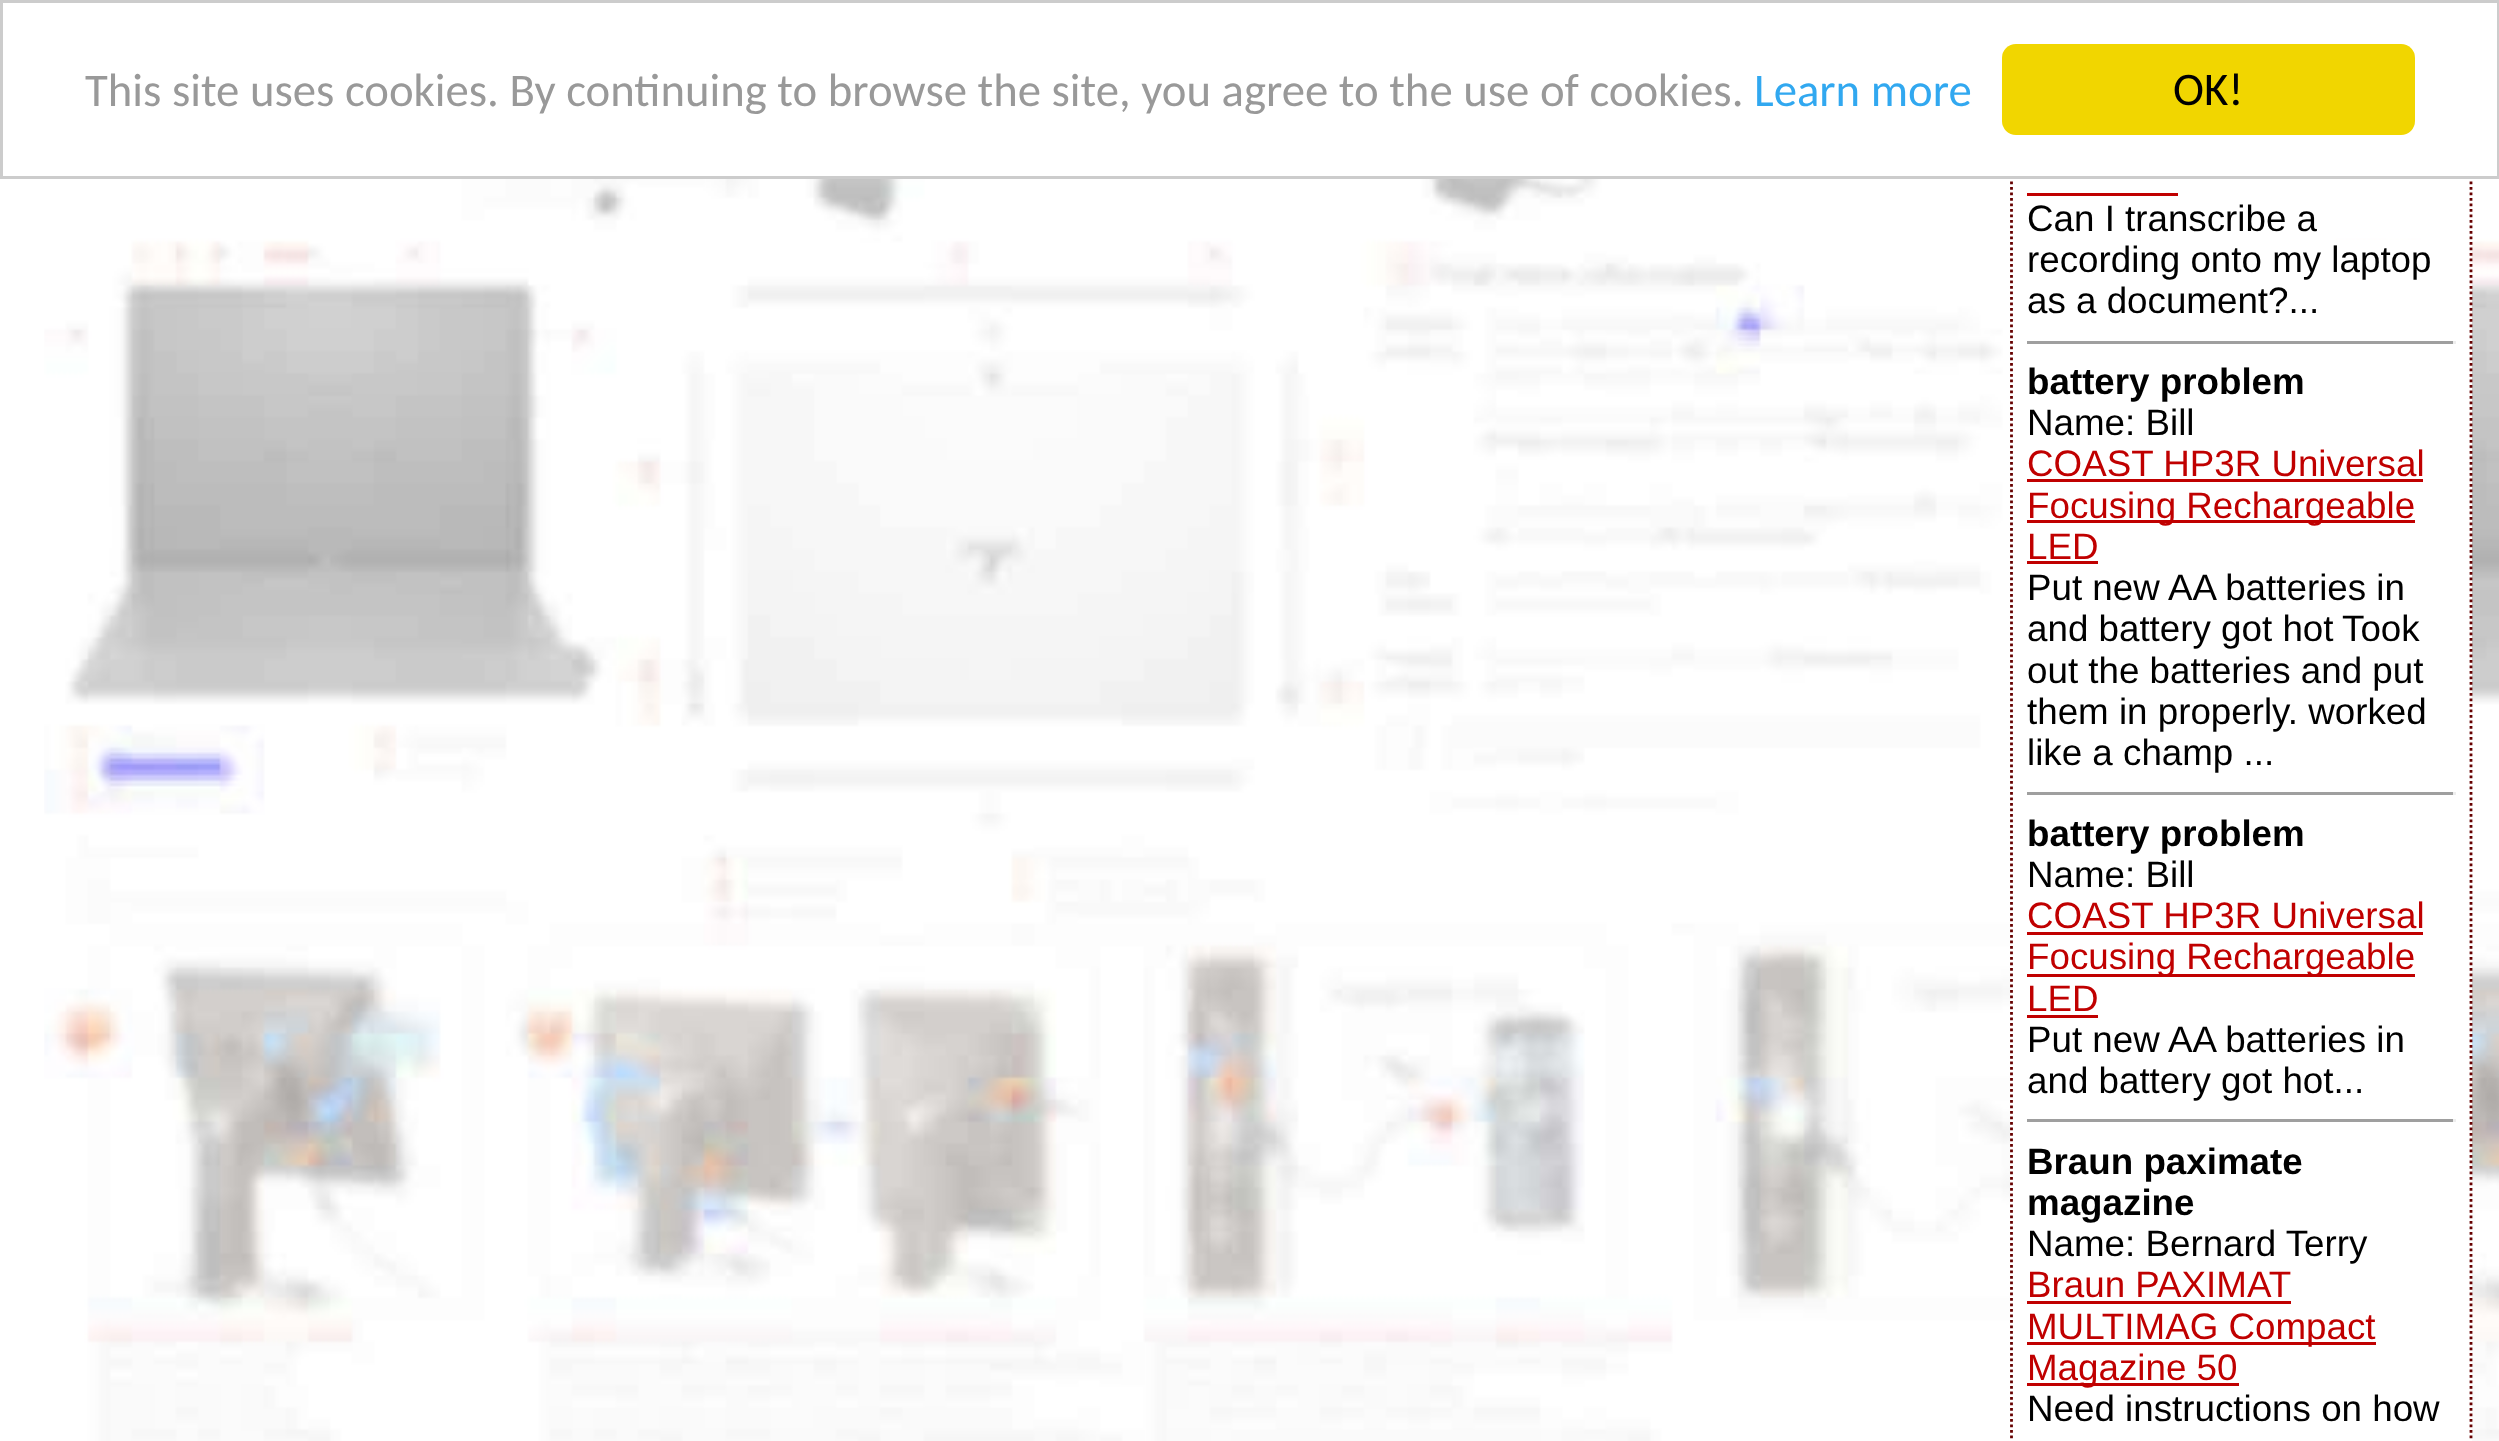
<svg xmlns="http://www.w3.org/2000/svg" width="2499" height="1441">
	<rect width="100%" height="100%" fill="#FFFFFF" />
	<image x="44" y="179" width="2455" height="1262" href="assets/img1.png" />
	<rect x="2010" y="240" width="462" height="1201" fill="#FFFFFF" />
	<path d="M2471-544.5V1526" fill="none" stroke="#660000" stroke-width="2.8" stroke-dasharray="2.75 2.75" />
	<path d="M2011.5-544.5V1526" fill="none" stroke="#660000" stroke-width="2.8" stroke-dasharray="2.75 2.75" />
	<rect x="2010" y="5" width="463" height="169" fill="#FFFFFF" />
	<rect x="1.5" y="1.5" width="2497" height="176" fill="none" stroke="#CCCCCC" stroke-width="3" />
	<text x="85" y="106" font-family="Carlito" font-size="46.75" fill="#999999">This site uses cookies. By continuing to browse the site, you agree to the use of cookies.</text>
	<text x="1754" y="106" font-family="Carlito" font-size="46.75" fill="#31A8F0">Learn more</text>
	<rect x="2002" y="44" width="413" height="91" rx="14" fill="#F1D600" />
	<text x="2173" y="105" font-family="Carlito" font-size="46.75" fill="#000000">OK!</text>
	<rect x="2027" y="193" width="151" height="3" fill="#C00000" />
	<g font-family="Liberation Sans" font-size="36.75" fill="#000000">
		<text x="2027" y="231">Can I transcribe a</text>
		<text x="2027" y="272">recording onto my laptop</text>
		<text x="2027" y="313">as a document?...</text>
	</g>
	<rect x="2027" y="341" width="429" height="3" fill="#9F9F9F" />
	<rect x="2453" y="341" width="3" height="3" fill="#EEEEEE" />
	<text x="2027" y="394" font-family="Liberation Sans" font-size="36.75" font-weight="700" fill="#000000">battery problem</text>
	<text x="2027" y="435" font-family="Liberation Sans" font-size="36.75" fill="#000000">Name: Bill</text>
	<text x="2027" y="476" font-family="Liberation Sans" font-size="36.75" fill="#C00000">COAST HP3R Universal</text>
	<rect x="2027" y="479" width="396" height="3" fill="#C00000" />
	<rect x="2027" y="520" width="388" height="3" fill="#C00000" />
	<g font-family="Liberation Sans" font-size="36.75" fill="#C00000">
		<text x="2027" y="518">Focusing Rechargeable</text>
		<text x="2027" y="559">LED</text>
	</g>
	<rect x="2027" y="561" width="71" height="3" fill="#C00000" />
	<g font-family="Liberation Sans" font-size="36.75" fill="#000000">
		<text x="2027" y="600">Put new AA batteries in</text>
		<text x="2027" y="641">and battery got hot</text>
		<text x="2342" y="641">Took</text>
		<text x="2027" y="683">out the batteries and put</text>
		<text x="2027" y="724">them in properly. worked</text>
		<text x="2027" y="765">like a champ ...</text>
	</g>
	<rect x="2027" y="792" width="429" height="3" fill="#9F9F9F" />
	<rect x="2453" y="792" width="3" height="3" fill="#EEEEEE" />
	<text x="2027" y="846" font-family="Liberation Sans" font-size="36.75" font-weight="700" fill="#000000">battery problem</text>
	<text x="2027" y="887" font-family="Liberation Sans" font-size="36.75" fill="#000000">Name: Bill</text>
	<text x="2027" y="928" font-family="Liberation Sans" font-size="36.75" fill="#C00000">COAST HP3R Universal</text>
	<rect x="2027" y="932" width="396" height="3" fill="#C00000" />
	<rect x="2027" y="974" width="388" height="3" fill="#C00000" />
	<g font-family="Liberation Sans" font-size="36.75" fill="#C00000">
		<text x="2027" y="969">Focusing Rechargeable</text>
		<text x="2027" y="1011">LED</text>
	</g>
	<rect x="2027" y="1015" width="71" height="3" fill="#C00000" />
	<g font-family="Liberation Sans" font-size="36.75" fill="#000000">
		<text x="2027" y="1052">Put new AA batteries in</text>
		<text x="2027" y="1093">and battery got hot...</text>
	</g>
	<rect x="2027" y="1119" width="429" height="3" fill="#9F9F9F" />
	<rect x="2453" y="1119" width="3" height="3" fill="#EEEEEE" />
	<g font-family="Liberation Sans" font-size="36.75" font-weight="700" fill="#000000">
		<text x="2027" y="1174">Braun paximate</text>
		<text x="2027" y="1215">magazine</text>
	</g>
	<text x="2027" y="1256" font-family="Liberation Sans" font-size="36.75" fill="#000000">Name: Bernard Terry</text>
	<text x="2027" y="1297" font-family="Liberation Sans" font-size="36.75" fill="#C00000">Braun PAXIMAT</text>
	<rect x="2027" y="1301" width="264" height="3" fill="#C00000" />
	<rect x="2027" y="1342" width="349" height="3" fill="#C00000" />
	<text x="2027" y="1339" font-family="Liberation Sans" font-size="36.75" fill="#C00000">MULTIMAG Compact</text>
	<rect x="2027" y="1383" width="212" height="3" fill="#C00000" />
	<text x="2027" y="1380" font-family="Liberation Sans" font-size="36.75" fill="#C00000">Magazine 50</text>
	<text x="2027" y="1421" font-family="Liberation Sans" font-size="36.75" fill="#000000">Need instructions on how</text>
</svg>
